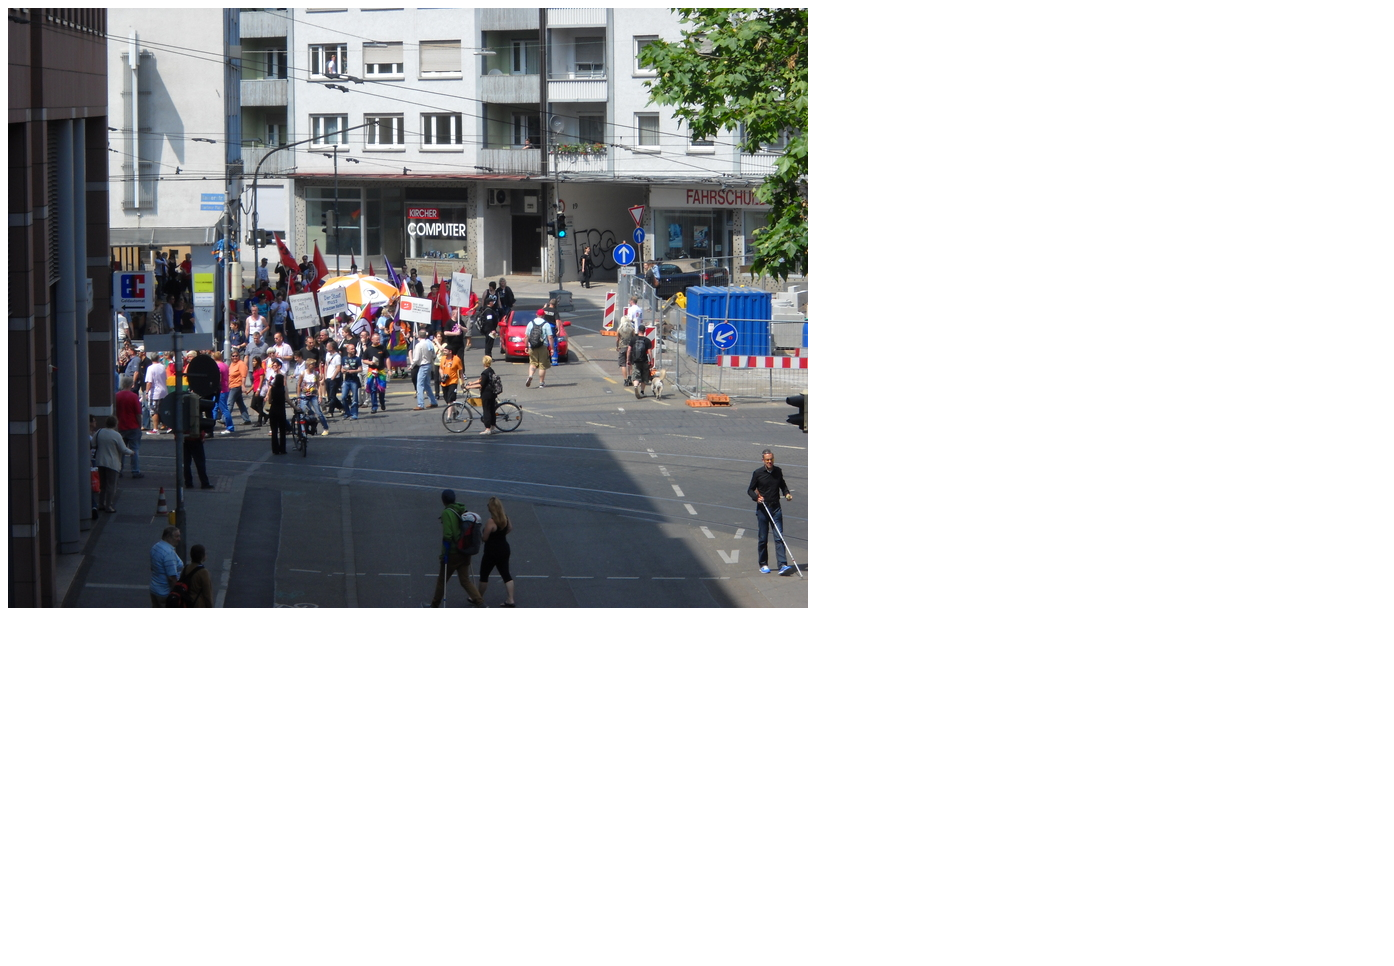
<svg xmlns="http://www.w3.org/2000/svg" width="1394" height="966">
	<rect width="100%" height="100%" fill="#FFFFFF" />
	<image x="8" y="8" width="800" height="600" href="assets/img1.png" />
</svg>
